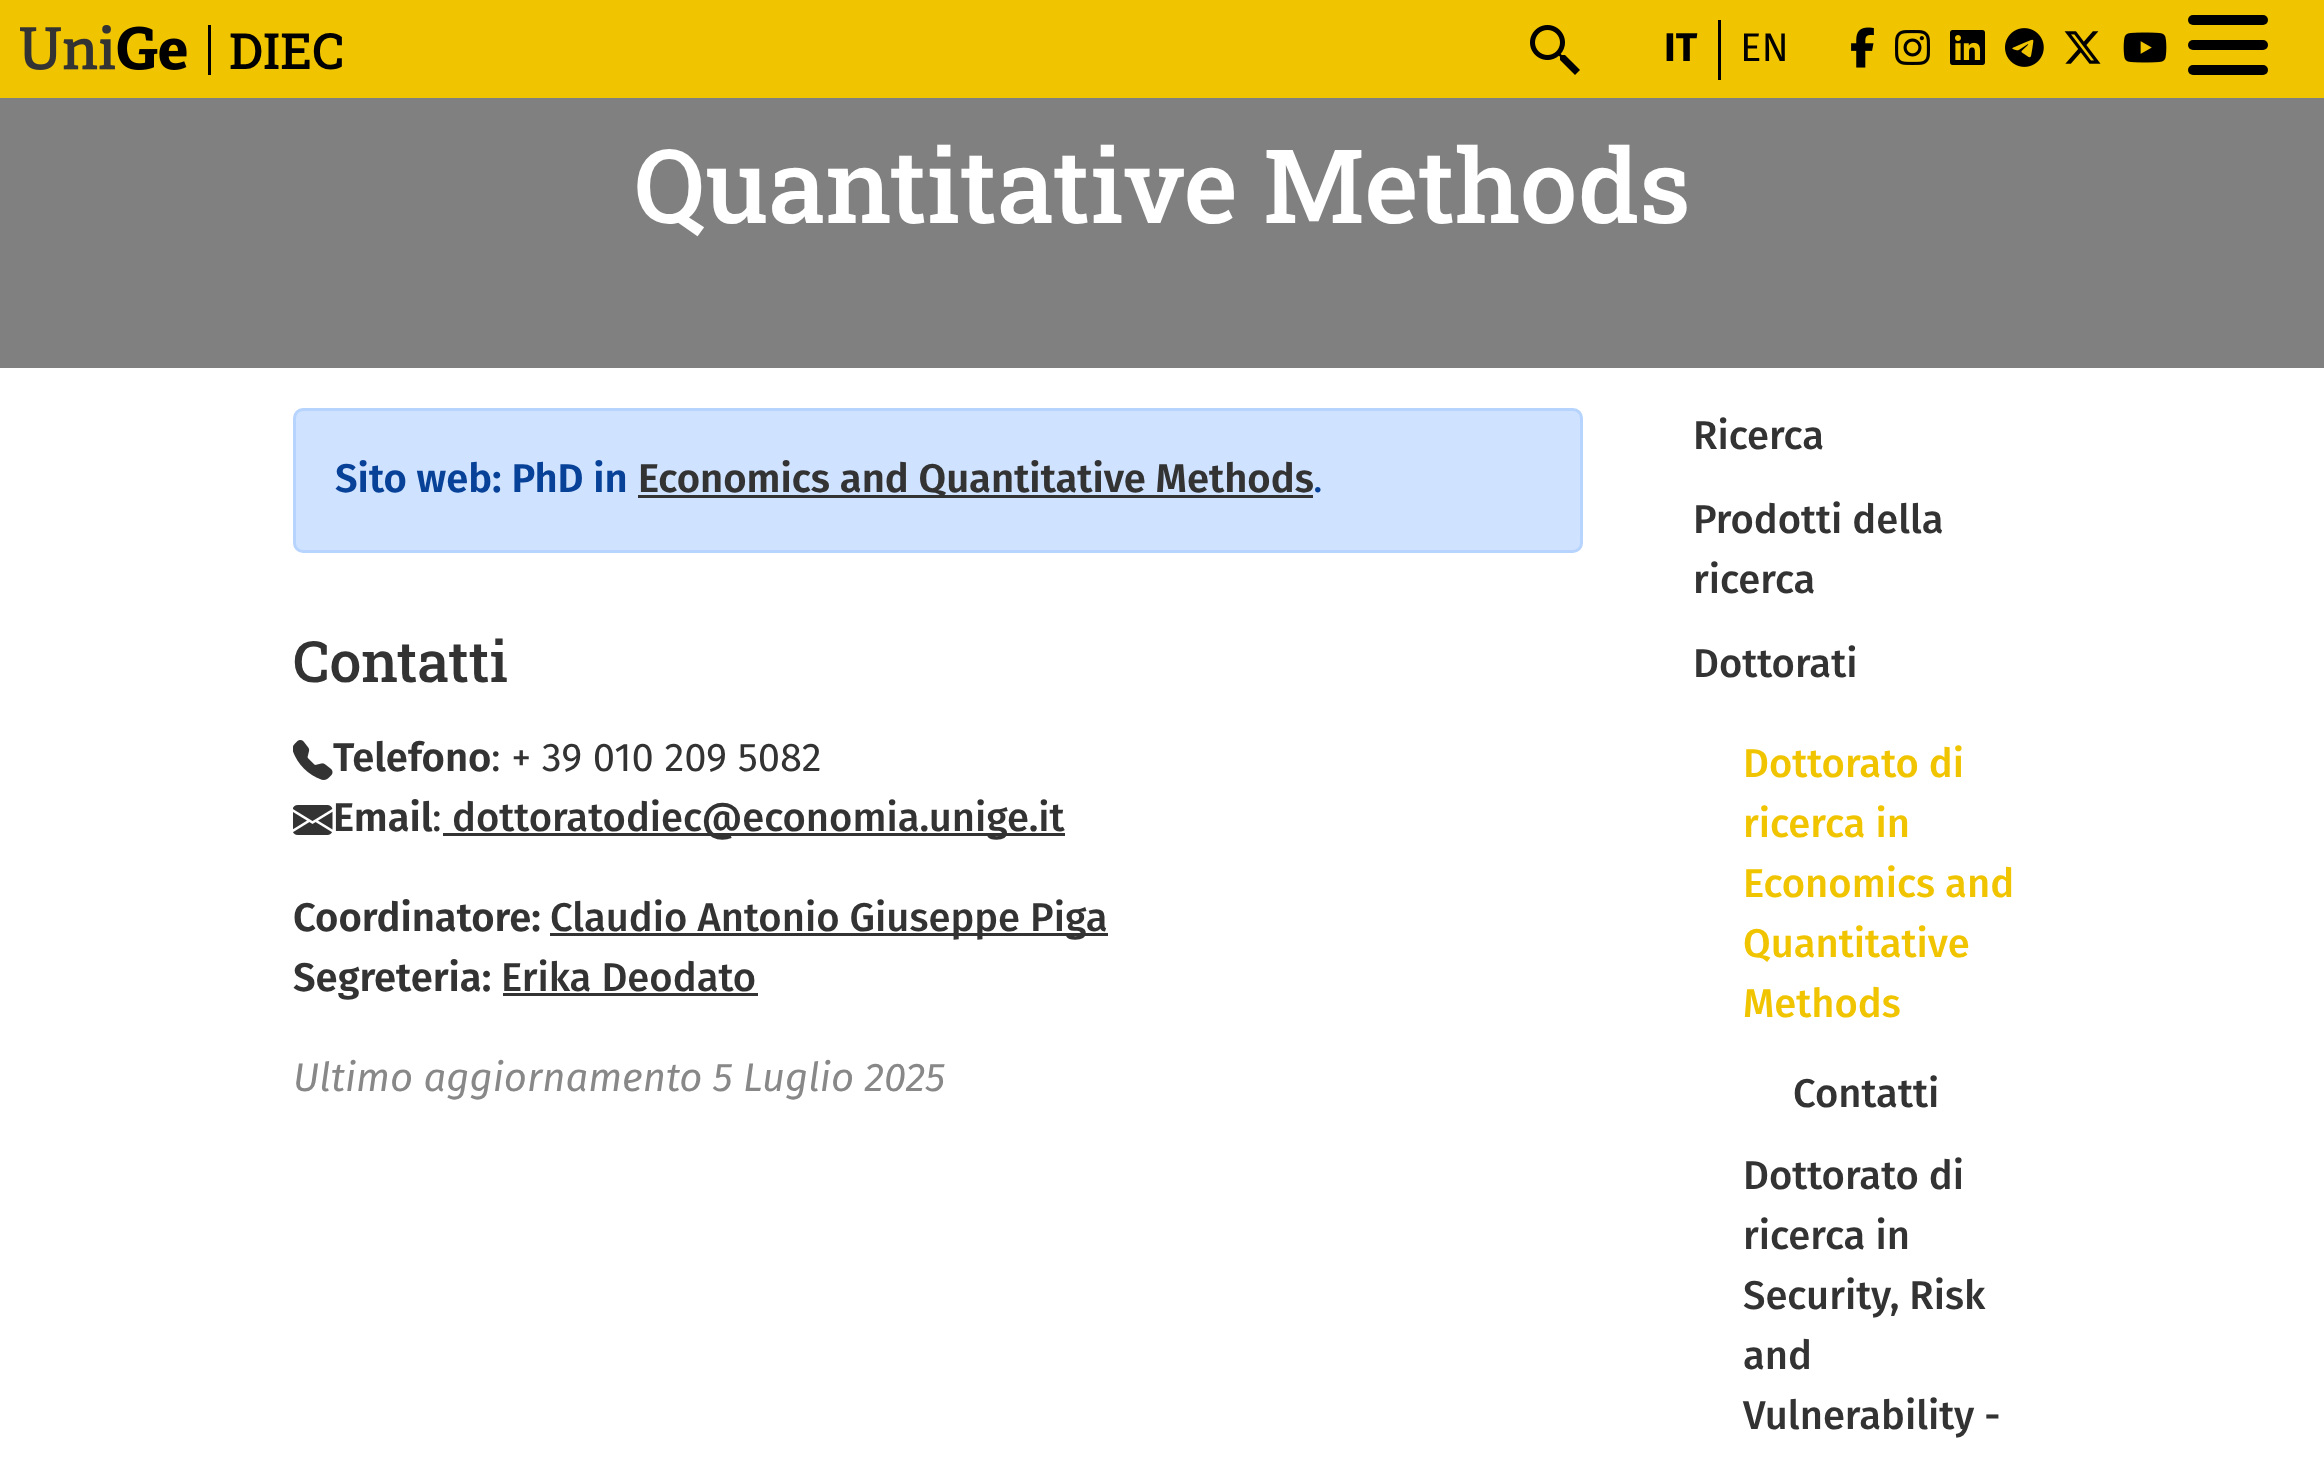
<svg xmlns="http://www.w3.org/2000/svg" width="2324" height="1464">
	<rect width="100%" height="100%" fill="#FFFFFF" />
	<rect x="0" y="0" width="2324" height="98" fill="#F1C400" />
	<image x="20" y="25" width="167" height="45" href="assets/img1.png" />
	<rect x="208" y="25" width="3" height="50" fill="#000000" />
	<text x="229" y="69" font-family="Roboto Slab" font-size="50" font-weight="500" fill="#000000">DIEC</text>
	<image x="1530" y="25" width="50" height="50" href="assets/img2.png" />
	<text x="1664" y="61" font-family="Fira Sans" font-size="40" font-weight="700" fill="#000000">IT</text>
	<rect x="1718" y="20" width="3" height="60" fill="#000000" />
	<text x="1740" y="61" font-family="Fira Sans" font-size="40" fill="#000000">EN</text>
	<image x="1851" y="27" width="23" height="41" href="assets/img3.png" />
	<image x="1895" y="30" width="35" height="35" href="assets/img4.png" />
	<image x="1950" y="30" width="35" height="35" href="assets/img5.png" />
	<image x="2005" y="28" width="39" height="39" href="assets/img6.png" />
	<image x="2064" y="31" width="37" height="33" href="assets/img7.png" />
	<image x="2123" y="32" width="44" height="31" href="assets/img8.png" />
	<rect x="2188" y="15" width="80" height="10" rx="5" fill="#000000" />
	<rect x="2188" y="40" width="80" height="10" rx="5" fill="#000000" />
	<rect x="2188" y="65" width="80" height="10" rx="5" fill="#000000" />
	<rect x="0" y="98" width="2324" height="270" fill="#808080" />
	<text x="634" y="223" font-family="Roboto Slab" font-size="102.6" font-weight="500" fill="#FFFFFF">Quantitative Methods</text>
	<rect x="294.5" y="409.5" width="1287" height="142" rx="8.5" fill="#CFE2FF" stroke="#B6D4FE" stroke-width="3" />
	<text x="335" y="492" font-family="Fira Sans" font-size="40" font-weight="600" fill="#084298">Sito web: PhD in</text>
	<rect x="638" y="495" width="675" height="3" fill="#333333" />
	<text x="638" y="492" font-family="Fira Sans" font-size="40" font-weight="600" fill="#333333">Economics and Quantitative Methods</text>
	<text x="1313" y="492" font-family="Fira Sans" font-size="40" fill="#084298">.</text>
	<text x="293" y="682" font-family="Roboto Slab" font-size="57" font-weight="500" fill="#333333">Contatti</text>
	<text x="333" y="771" font-family="Fira Sans" font-size="40" font-weight="600" fill="#333333">Telefono</text>
	<image x="293" y="740" width="40" height="40" href="assets/img9.png" />
	<text x="491" y="771" font-family="Fira Sans" font-size="40" fill="#333333">: + 39 010 209 5082</text>
	<image x="293" y="805" width="40" height="30" href="assets/img10.png" />
	<text x="333" y="831" font-family="Fira Sans" font-size="40" font-weight="600" fill="#333333">Email</text>
	<text x="432" y="831" font-family="Fira Sans" font-size="40" fill="#333333">:</text>
	<rect x="443" y="833" width="622" height="3" fill="#333333" />
	<text x="452" y="831" font-family="Fira Sans" font-size="40" font-weight="500" fill="#333333">dottoratodiec@economia.unige.it</text>
	<text x="293" y="931" font-family="Fira Sans" font-size="40" font-weight="600" fill="#333333">Coordinatore:</text>
	<rect x="550" y="933" width="558" height="3" fill="#333333" />
	<text x="550" y="931" font-family="Fira Sans" font-size="40" font-weight="500" fill="#333333">Claudio Antonio Giuseppe Piga</text>
	<text x="293" y="991" font-family="Fira Sans" font-size="40" font-weight="600" fill="#333333">Segreteria:</text>
	<text x="501" y="991" font-family="Fira Sans" font-size="40" font-weight="500" fill="#333333">Erika Deodato</text>
	<rect x="503" y="993" width="255" height="3" fill="#333333" />
	<text x="293" y="1091" font-family="Fira Sans" font-size="40" font-style="italic" fill="#888888">Ultimo aggiornamento 5 Luglio 2025</text>
	<g font-family="Fira Sans" font-size="40" font-weight="500" fill="#333333">
		<text x="1693" y="449">Ricerca</text>
		<text x="1693" y="533">Prodotti della</text>
		<text x="1693" y="593">ricerca</text>
		<text x="1693" y="677">Dottorati</text>
	</g>
	<g font-family="Fira Sans" font-size="40" font-weight="500" fill="#F1C400">
		<text x="1743" y="777">Dottorato di</text>
		<text x="1743" y="837">ricerca in</text>
		<text x="1743" y="897">Economics and</text>
		<text x="1743" y="957">Quantitative</text>
		<text x="1743" y="1017">Methods</text>
	</g>
	<g font-family="Fira Sans" font-size="40" font-weight="500" fill="#333333">
		<text x="1793" y="1107">Contatti</text>
		<text x="1743" y="1189">Dottorato di</text>
		<text x="1743" y="1249">ricerca in</text>
		<text x="1743" y="1309">Security, Risk</text>
		<text x="1743" y="1369">and</text>
		<text x="1743" y="1429">Vulnerability -</text>
	</g>
</svg>
